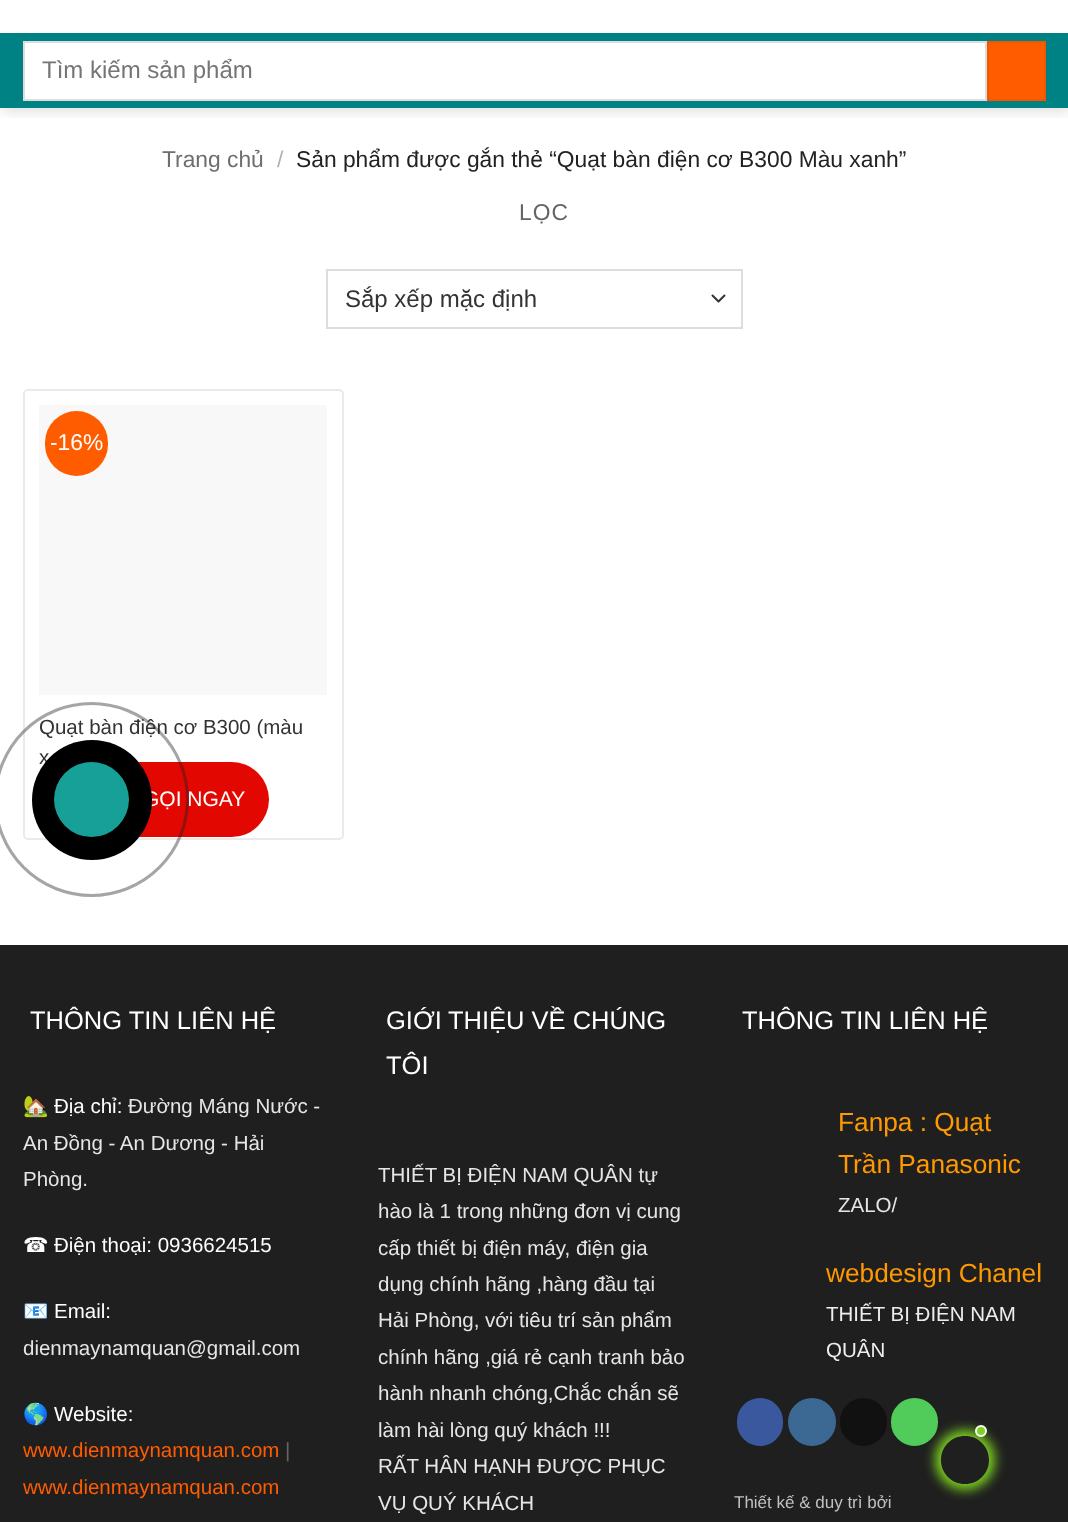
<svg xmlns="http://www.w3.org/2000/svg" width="1068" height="1522">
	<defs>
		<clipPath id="clip1"><rect x="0" y="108" width="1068" height="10" /></clipPath>
		<clipPath id="clip2"><path d="M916 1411H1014V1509H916ZM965 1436C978.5 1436 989 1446.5 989 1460C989 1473.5 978.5 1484 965 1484C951.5 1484 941 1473.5 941 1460C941 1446.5 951.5 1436 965 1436Z" clip-rule="evenodd" /></clipPath>
	</defs>
	<rect width="100%" height="100%" fill="#FFFFFF" />
	<g clip-path="url(#clip1)">
		<rect x="2" y="-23" width="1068" height="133" fill="#000000" fill-opacity="0.15" filter="blur(7.5px)" />
	</g>
	<rect x="0" y="33" width="1068" height="75" fill="#008284" />
	<rect x="24" y="42" width="962" height="58" fill="#FFFFFF" stroke="#DDDDDD" stroke-width="2" />
	<text x="42" y="78" font-family="Liberation Sans" font-size="24" fill="#757575">Tìm kiếm sản phẩm</text>
	<rect x="988" y="42" width="57" height="58" fill="#FF5C00" stroke="#F25700" stroke-width="2" />
	<text x="162" y="167" font-family="Liberation Sans" font-size="22.8" fill="#6E6E6E">Trang chủ</text>
	<text x="277" y="167" font-family="Liberation Sans" font-size="22.8" fill="#B2B2B2">/</text>
	<text x="296" y="167" font-family="Liberation Sans" font-size="22.8" fill="#222222">Sản phẩm được gắn thẻ “Quạt bàn điện cơ B300 Màu xanh”</text>
	<text x="519" y="220" font-family="Liberation Sans" font-size="22.8" letter-spacing="1" fill="#656565">LỌC</text>
	<path d="M712.5 295.5L718.5 301.5L724.5 295.5" fill="none" stroke="#333333" stroke-width="2" stroke-linecap="round" stroke-linejoin="round" />
	<rect x="327" y="270" width="415" height="58" fill="none" stroke="#DDDDDD" stroke-width="2" />
	<text x="345" y="307" font-family="Liberation Sans" font-size="24" fill="#333333">Sắp xếp mặc định</text>
	<rect x="24" y="390" width="319" height="449" rx="4" fill="none" stroke="#EAEAEA" stroke-width="2" />
	<rect x="39" y="405" width="288" height="290" fill="#F8F8F8" />
	<rect x="45" y="411" width="63" height="65" rx="31.5" fill="#FF5C00" />
	<text x="50" y="450" font-family="Liberation Sans" font-size="22.8" fill="#FFFFFF">-16%</text>
	<g font-family="Liberation Sans" font-size="20.5" fill="#333333">
		<text x="39" y="734">Quạt bàn điện cơ B300 (màu</text>
		<text x="39" y="764">x</text>
	</g>
	<rect x="0" y="945" width="1068" height="577" fill="#1F1F1F" />
	<text x="30" y="1029" font-family="Liberation Sans" font-size="25.5" fill="#FFFFFF">THÔNG TIN LIÊN HỆ</text>
	<text x="23" y="1113" font-family="Noto Color Emoji" font-size="20.5" fill="#FFFFFF">🏡</text>
	<text x="54" y="1113" font-family="Liberation Sans" font-size="20.5" fill="#FFFFFF">Địa chỉ:</text>
	<g font-family="Liberation Sans" font-size="20.5" fill="#E6E6E6">
		<text x="128" y="1113">Đường Máng Nước -</text>
		<text x="23" y="1150">An Đồng - An Dương - Hải</text>
		<text x="23" y="1186">Phòng.</text>
	</g>
	<text x="23" y="1252" font-family="DejaVu Sans" font-size="20.5" fill="#FFFFFF">☎</text>
	<text x="54" y="1252" font-family="Liberation Sans" font-size="20.5" fill="#FFFFFF">Điện thoại: 0936624515</text>
	<text x="23" y="1318" font-family="Noto Color Emoji" font-size="20.5" fill="#FFFFFF">📧</text>
	<text x="54" y="1318" font-family="Liberation Sans" font-size="20.5" fill="#FFFFFF">Email:</text>
	<text x="23" y="1355" font-family="Liberation Sans" font-size="20.5" fill="#E6E6E6">dienmaynamquan@gmail.com</text>
	<text x="23" y="1421" font-family="Noto Color Emoji" font-size="20.5" fill="#FFFFFF">🌎</text>
	<text x="54" y="1421" font-family="Liberation Sans" font-size="20.5" fill="#FFFFFF">Website:</text>
	<text x="23" y="1457" font-family="Liberation Sans" font-size="20.5" fill="#FF5C00">www.dienmaynamquan.com</text>
	<text x="285" y="1457" font-family="Liberation Sans" font-size="20.5" fill="#656565">|</text>
	<text x="23" y="1494" font-family="Liberation Sans" font-size="20.5" fill="#FF5C00">www.dienmaynamquan.com</text>
	<g font-family="Liberation Sans" font-size="25.5" fill="#FFFFFF">
		<text x="386" y="1029">GIỚI</text>
		<text x="448" y="1029">THIỆU VỀ CHÚNG</text>
		<text x="386" y="1074">TÔI</text>
	</g>
	<g font-family="Liberation Sans" font-size="20.5" fill="#E6E6E6">
		<text x="378" y="1182">THIẾT BỊ ĐIỆN NAM QUÂN tự</text>
		<text x="378" y="1218">hào là 1 trong những đơn vị cung</text>
		<text x="378" y="1255">cấp thiết bị điện máy, điện gia</text>
		<text x="378" y="1291">dụng chính hãng ,hàng đầu tại</text>
		<text x="378" y="1327">Hải Phòng, với tiêu trí sản phẩm</text>
		<text x="378" y="1364">chính hãng ,giá rẻ cạnh tranh bảo</text>
		<text x="378" y="1400">hành nhanh chóng,Chắc chắn sẽ</text>
		<text x="378" y="1437">làm hài lòng quý khách !!!</text>
		<text x="378" y="1473">RẤT HÂN HẠNH ĐƯỢC PHỤC</text>
		<text x="378" y="1510">VỤ QUÝ KHÁCH</text>
	</g>
	<text x="742" y="1029" font-family="Liberation Sans" font-size="25.5" fill="#FFFFFF">THÔNG TIN LIÊN HỆ</text>
	<g font-family="Liberation Sans" font-size="26.25" fill="#FF9900">
		<text x="838" y="1131">Fanpa : Quạt</text>
		<text x="838" y="1173">Trần Panasonic</text>
	</g>
	<text x="838" y="1212" font-family="Liberation Sans" font-size="20.5" fill="#E6E6E6">ZALO/</text>
	<text x="826" y="1282" font-family="Liberation Sans" font-size="26.25" fill="#FF9900">webdesign Chanel</text>
	<g font-family="Liberation Sans" font-size="20.5" fill="#EDEDED">
		<text x="826" y="1321">THIẾT BỊ ĐIỆN NAM</text>
		<text x="826" y="1357">QUÂN</text>
	</g>
	<rect x="738" y="1399" width="44" height="46" rx="22" fill="#3A589D" stroke="#3A589D" stroke-width="2" />
	<circle cx="812" cy="1422" r="23" fill="#3B6994" stroke="#3B6994" stroke-width="2" />
	<rect x="841" y="1399" width="45" height="46" rx="22.5" fill="#111111" stroke="#111111" stroke-width="2" />
	<rect x="892" y="1399" width="45" height="46" rx="22.5" fill="#51CB5A" stroke="#51CB5A" stroke-width="2" />
	<text x="734" y="1508" font-family="Liberation Sans" font-size="17" fill="#C0C0C0">Thiết kế &amp; duy trì bởi</text>
	<rect x="54" y="762" width="215" height="75" rx="37.5" fill="#E20700" />
	<text x="143" y="806" font-family="Liberation Sans" font-size="21" fill="#FFFFFF">GỌI NGAY</text>
	<circle cx="91.5" cy="799.5" r="96" fill="none" stroke="#1E1E1E" stroke-opacity="0.4" stroke-width="3" />
	<circle cx="92" cy="800" r="60" fill="#000000" />
	<circle cx="91.5" cy="799.5" r="37.5" fill="#16A097" />
	<g clip-path="url(#clip2)">
		<rect x="935" y="1430" width="60" height="60" rx="30" fill="#7ED321" filter="blur(6px)" />
	</g>
	<circle cx="981" cy="1431" r="5" fill="#7ED321" stroke="#FFFFFF" stroke-width="2" />
</svg>
